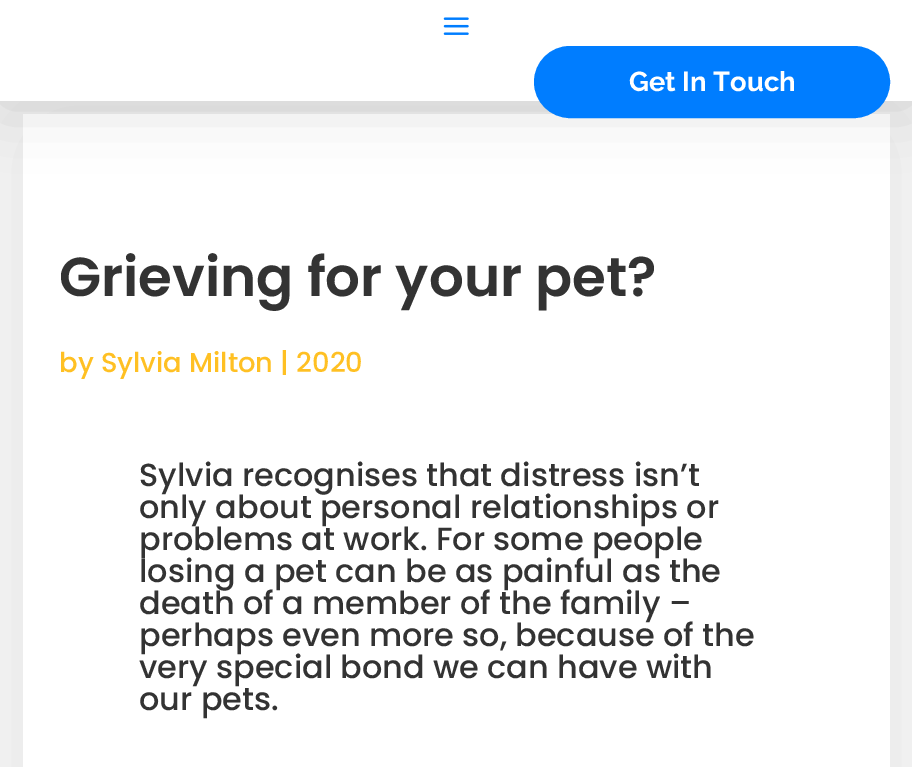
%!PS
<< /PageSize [912 767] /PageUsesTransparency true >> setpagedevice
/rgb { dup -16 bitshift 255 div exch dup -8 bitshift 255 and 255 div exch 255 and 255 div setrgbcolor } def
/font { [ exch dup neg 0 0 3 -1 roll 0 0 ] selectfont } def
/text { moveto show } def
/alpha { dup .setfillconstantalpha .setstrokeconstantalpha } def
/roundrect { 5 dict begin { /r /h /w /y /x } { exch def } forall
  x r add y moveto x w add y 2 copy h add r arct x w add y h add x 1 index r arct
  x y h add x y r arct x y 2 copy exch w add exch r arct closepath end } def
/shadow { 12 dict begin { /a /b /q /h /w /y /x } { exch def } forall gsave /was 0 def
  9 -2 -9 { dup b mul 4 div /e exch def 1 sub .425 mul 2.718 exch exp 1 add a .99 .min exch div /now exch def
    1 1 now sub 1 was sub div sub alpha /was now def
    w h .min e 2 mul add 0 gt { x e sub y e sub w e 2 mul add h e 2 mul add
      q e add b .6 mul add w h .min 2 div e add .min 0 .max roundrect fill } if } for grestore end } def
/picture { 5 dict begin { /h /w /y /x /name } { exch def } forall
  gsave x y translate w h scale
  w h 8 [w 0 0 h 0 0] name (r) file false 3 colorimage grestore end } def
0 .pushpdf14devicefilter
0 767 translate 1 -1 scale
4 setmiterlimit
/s1 { /Raleway-Bold 27.4 font 16#FFFFFF rgb } def
/s2 { /Poppins-SemiBold 54.75 font 16#333333 rgb } def
/s3 { /Poppins-Medium 27.4 font 16#FFC023 rgb } def
/s4 { /Poppins-Medium 31.9 font 16#333333 rgb } def
16#F4F4F4 rgb
0 0 912 767 rectfill
16#000000 rgb
49 143 815 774 0 50 0.08 shadow
16#FFFFFF rgb
23 114 867 653 rectfill
16#000000 rgb
0 3 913 101 0 31 0.15 shadow
16#FFFFFF rgb
0 0 912 101 rectfill
(pic1.raw) 443 17 26 18 picture
16#007DFF rgb
536 48 352 68 34 roundrect gsave fill grestore
4 setlinewidth
stroke
s1
(Get In Touch) 629 91 text
s2
(Grieving for your pet?) 59 296 text
s3
(by Sylvia Milton | 2020) 59 372 text
s4
(Sylvia recognises that distress isn’t) 139 486 text
(only about personal relationships or) 139 518 text
(problems at work. For some people) 139 550 text
(losing a pet can be as painful as the) 139 582 text
(death of a member of the family –) 139 614 text
(perhaps even more so, because of the) 139 646 text
(very special bond we can have with) 139 678 text
(our pets.) 139 710 text
.poppdf14devicefilter showpage
